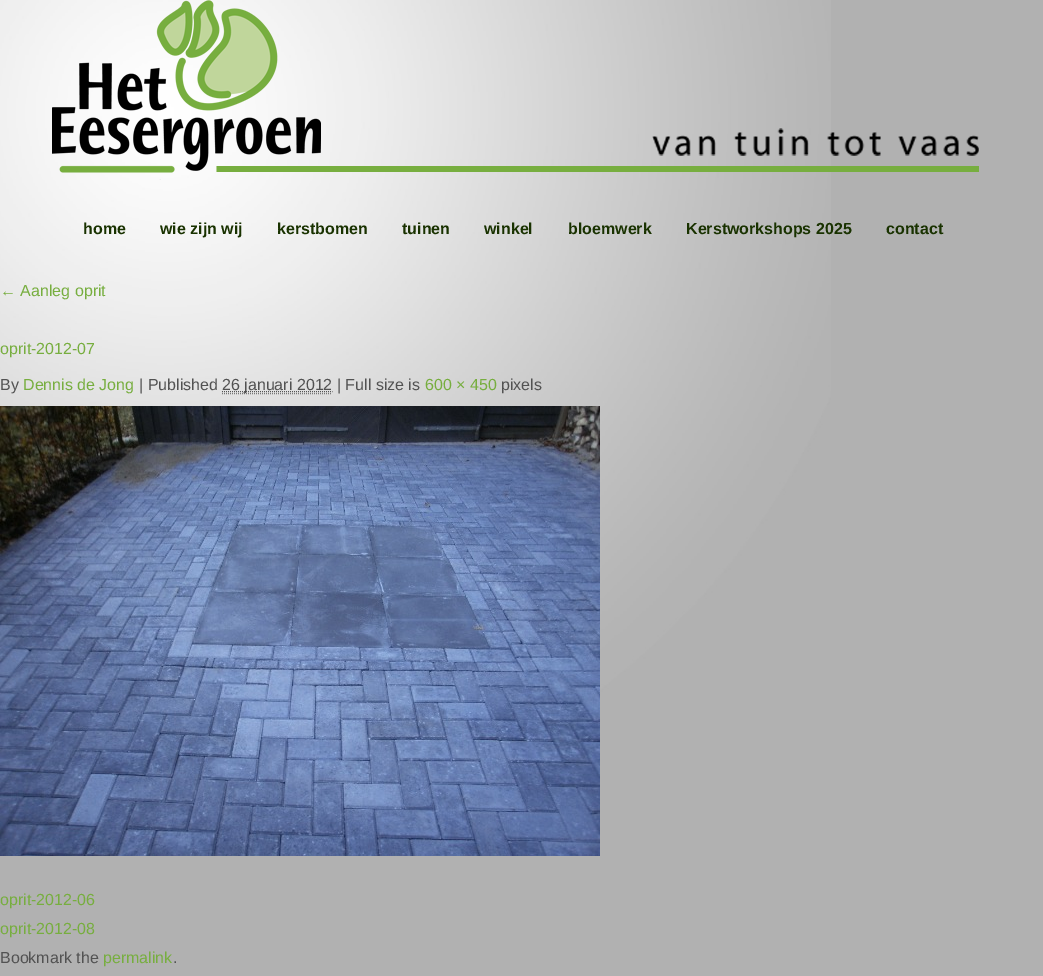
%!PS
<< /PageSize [1043 976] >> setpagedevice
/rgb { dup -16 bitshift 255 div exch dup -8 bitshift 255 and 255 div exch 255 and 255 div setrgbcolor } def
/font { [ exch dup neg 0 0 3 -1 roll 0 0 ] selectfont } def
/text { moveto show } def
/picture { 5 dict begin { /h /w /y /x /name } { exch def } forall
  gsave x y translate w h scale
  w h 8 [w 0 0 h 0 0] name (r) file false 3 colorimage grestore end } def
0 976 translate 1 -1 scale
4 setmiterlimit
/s1 { /LiberationSans-Bold 16 font 16#193200 rgb } def
/s2 { /LiberationSans-Regular 16 font 16#77AE3F rgb } def
/s3 { /LiberationSans-Regular 16 font 16#525252 rgb } def
16#B1B1B1 rgb
0 0 1043 976 rectfill
(pic1.raw) 0 0 831 776 picture
(pic2.raw) 52 0 927 180 picture
s1
(home) 83 234 text
(wie zijn wij) 160 234 text
(kerstbomen) 277 234 text
(tuinen) 402 234 text
(winkel) 484 234 text
(bloemwerk) 568 234 text
(Kerstworkshops 2025) 686 234 text
(contact) 886 234 text
s2
(← Aanleg oprit) 0 296 text
(oprit-2012-07) 0 354 text
s3
(By) 0 390 text
s2
(Dennis de Jong) 23 390 text
s3
(| Published) 139 390 text
16#777777 rgb
[1 1] 0 setdash
222 393.5 moveto 332 393.5 lineto stroke
16#525252 rgb
222 391.5 moveto 332.5 391.5 lineto stroke
(26 januari 2012 | Full size is) 222 390 text
s2
(600 × 450) 425 390 text
s3
(pixels) 501 390 text
(pic3.raw) 0 406 600 450 picture
s2
(oprit-2012-06) 0 905 text
(oprit-2012-08) 0 934 text
s3
(Bookmark the) 0 963 text
s2
(permalink) 103 963 text
s3
(.) 173 963 text
showpage
